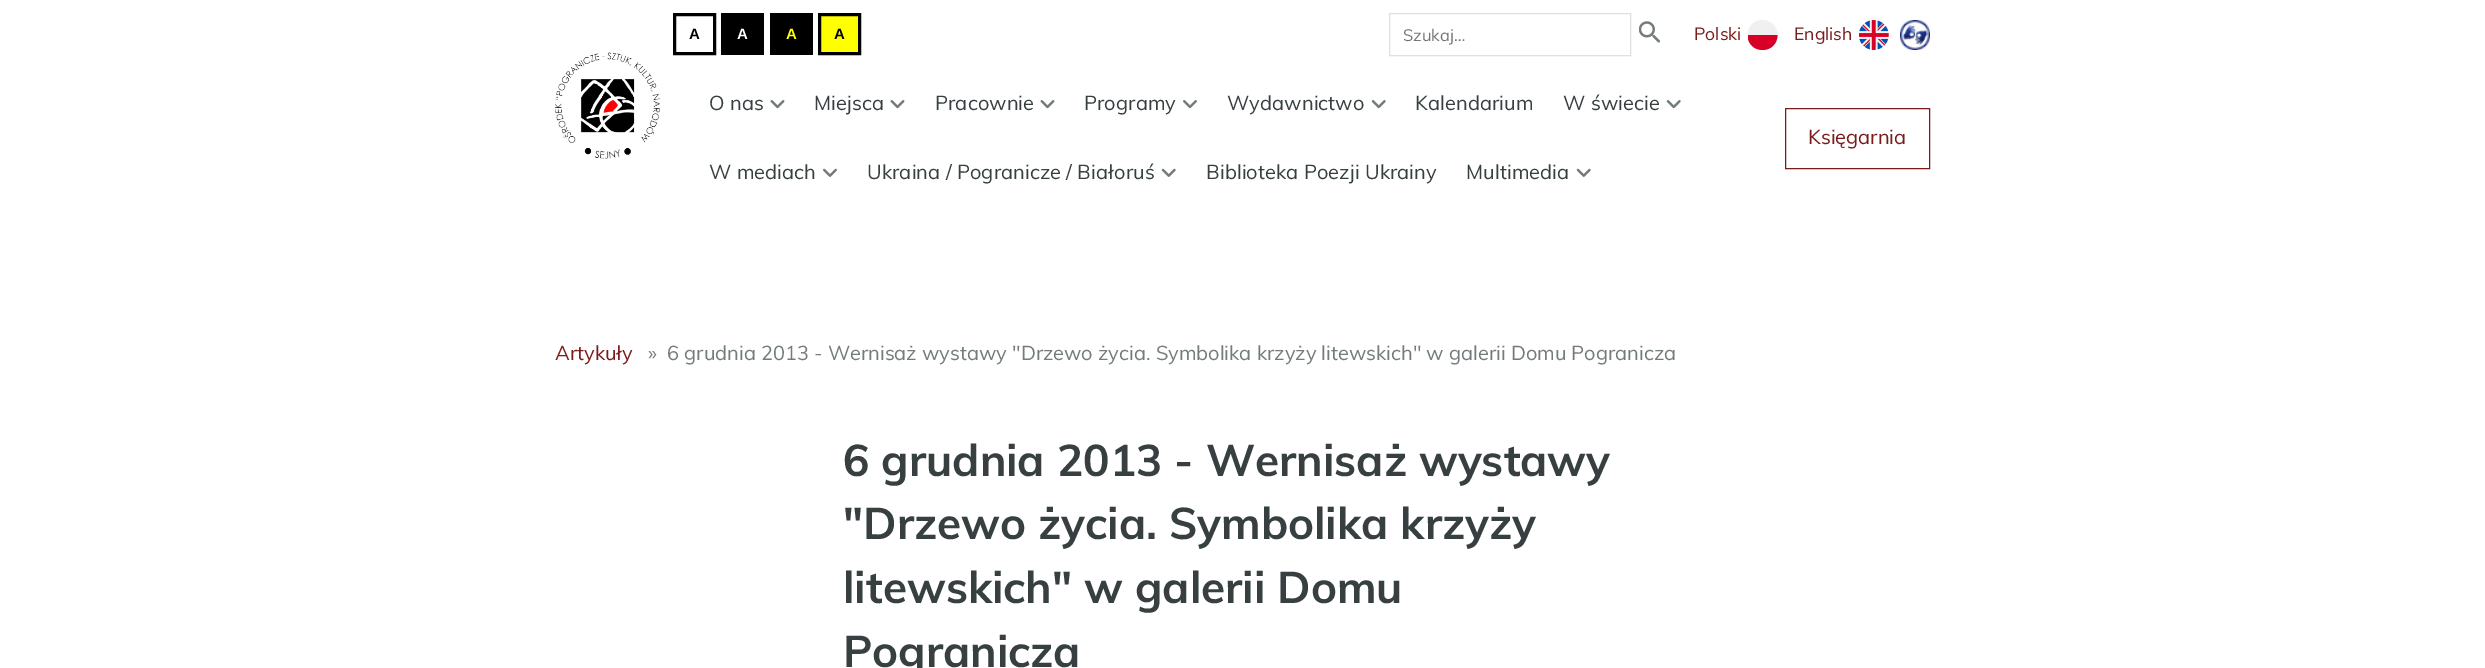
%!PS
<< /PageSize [2485 668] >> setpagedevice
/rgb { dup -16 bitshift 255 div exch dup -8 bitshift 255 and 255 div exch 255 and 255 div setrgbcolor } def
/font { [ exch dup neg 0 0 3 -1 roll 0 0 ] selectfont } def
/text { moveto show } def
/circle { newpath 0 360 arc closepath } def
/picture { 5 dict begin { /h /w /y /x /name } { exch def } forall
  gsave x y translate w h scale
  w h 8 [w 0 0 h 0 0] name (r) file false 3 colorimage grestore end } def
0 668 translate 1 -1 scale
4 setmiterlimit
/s1 { /LiberationSans-Bold 15 font 16#000000 rgb } def
/s2 { /LiberationSans-Bold 15 font 16#FFFFFF rgb } def
/s3 { /LiberationSans-Bold 15 font 16#FFFF00 rgb } def
/s4 { /Mulish-Regular 16.5 font 16#757575 rgb } def
/s5 { /Mulish-Regular 17.5 font 16#7A1C1C rgb } def
/s6 { /Mulish-Regular 20 font 16#7A1C1C rgb } def
/s7 { /Mulish-Regular 20 font 16#737B7D rgb } def
/s8 { /Mulish-Bold 44 font 16#373F41 rgb } def
16#FFFFFF rgb
0 0 2485 668 rectfill
(pic1.raw) 555 52 105 107 picture
16#000000 rgb
3 setlinewidth
674.5 14.5 40 39 rectstroke
s1
(A) 689 39 text
721 13 43 42 rectfill
s2
(A) 737 39 text
16#000000 rgb
770 13 43 42 rectfill
s3
(A) 786 39 text
819.5 14.5 moveto 859.5 14.5 lineto 859.5 53.5 lineto 819.5 53.5 lineto closepath gsave fill grestore
16#000000 rgb
stroke
(A) 834 39 text
16#E0E0E0 rgb
1 setlinewidth
1389.5 13.5 241 42 rectstroke
s4
(Szukaj…) 1403 41 text
(pic2.raw) 1639 21 21 22 picture
s5
(Polski) 1694 40 text
gsave
1748 20 30 30 rectclip
16#F0F0F0 rgb
1762.5 35 15 circle fill
16#D80027 rgb
1777.5 35 moveto 1777.5 43.5 1771 50 1762.5 50 curveto 1754 50 1747.5 43.5 1747.5 35 curveto fill
grestore
(English) 1794 40 text
(pic3.raw) 1859 20 30 30 picture
(pic4.raw) 1900 20 30 30 picture
/Mulish-Regular 20 font
16#373F41 rgb
709 110 moveto 0.1 0 (O nas) ashow
(pic5.raw) 770 100 15 9 picture
814 110 moveto 0.1 0 (Miejsca) ashow
(pic5.raw) 890 100 15 9 picture
935 110 moveto 0.1 0 (Pracownie) ashow
(pic5.raw) 1040 100 15 9 picture
1084 110 moveto 0.1 0 (Programy) ashow
(pic6.raw) 1183 100 14 9 picture
1227 110 moveto 0.1 0 (Wydawnictwo) ashow
(pic7.raw) 1371 100 15 9 picture
1415 110 moveto 0.1 0 (Kalendarium) ashow
1563 110 moveto 0.1 0 (W świecie) ashow
(pic7.raw) 1666 100 15 9 picture
709 179 moveto 0.1 0 (W mediach) ashow
(pic8.raw) 823 168 14 9 picture
867 179 moveto 0.1 0 (Ukraina / Pogranicze / Białoruś) ashow
(pic9.raw) 1161 168 15 9 picture
1206 179 moveto 0.1 0 (Biblioteka Poezji Ukrainy) ashow
1466 179 moveto 0.1 0 (Multimedia) ashow
(pic9.raw) 1576 168 15 9 picture
16#7A1C1C rgb
1785.5 108.5 144 60 rectstroke
(Księgarnia) 1808 144 text
(Artykuły) 555 360 text
s7
(») 648 360 text
(6 grudnia 2013 - Wernisaż wystawy "Drzewo życia. Symbolika krzyży litewskich" w galerii Domu Pogranicza) 667 360 text
s8
(6 grudnia 2013 - Wernisaż wystawy) 843 476 text
("Drzewo życia. Symbolika krzyży) 843 539 text
(litewskich" w galerii Domu) 843 603 text
(Pogranicza) 843 667 text
showpage
